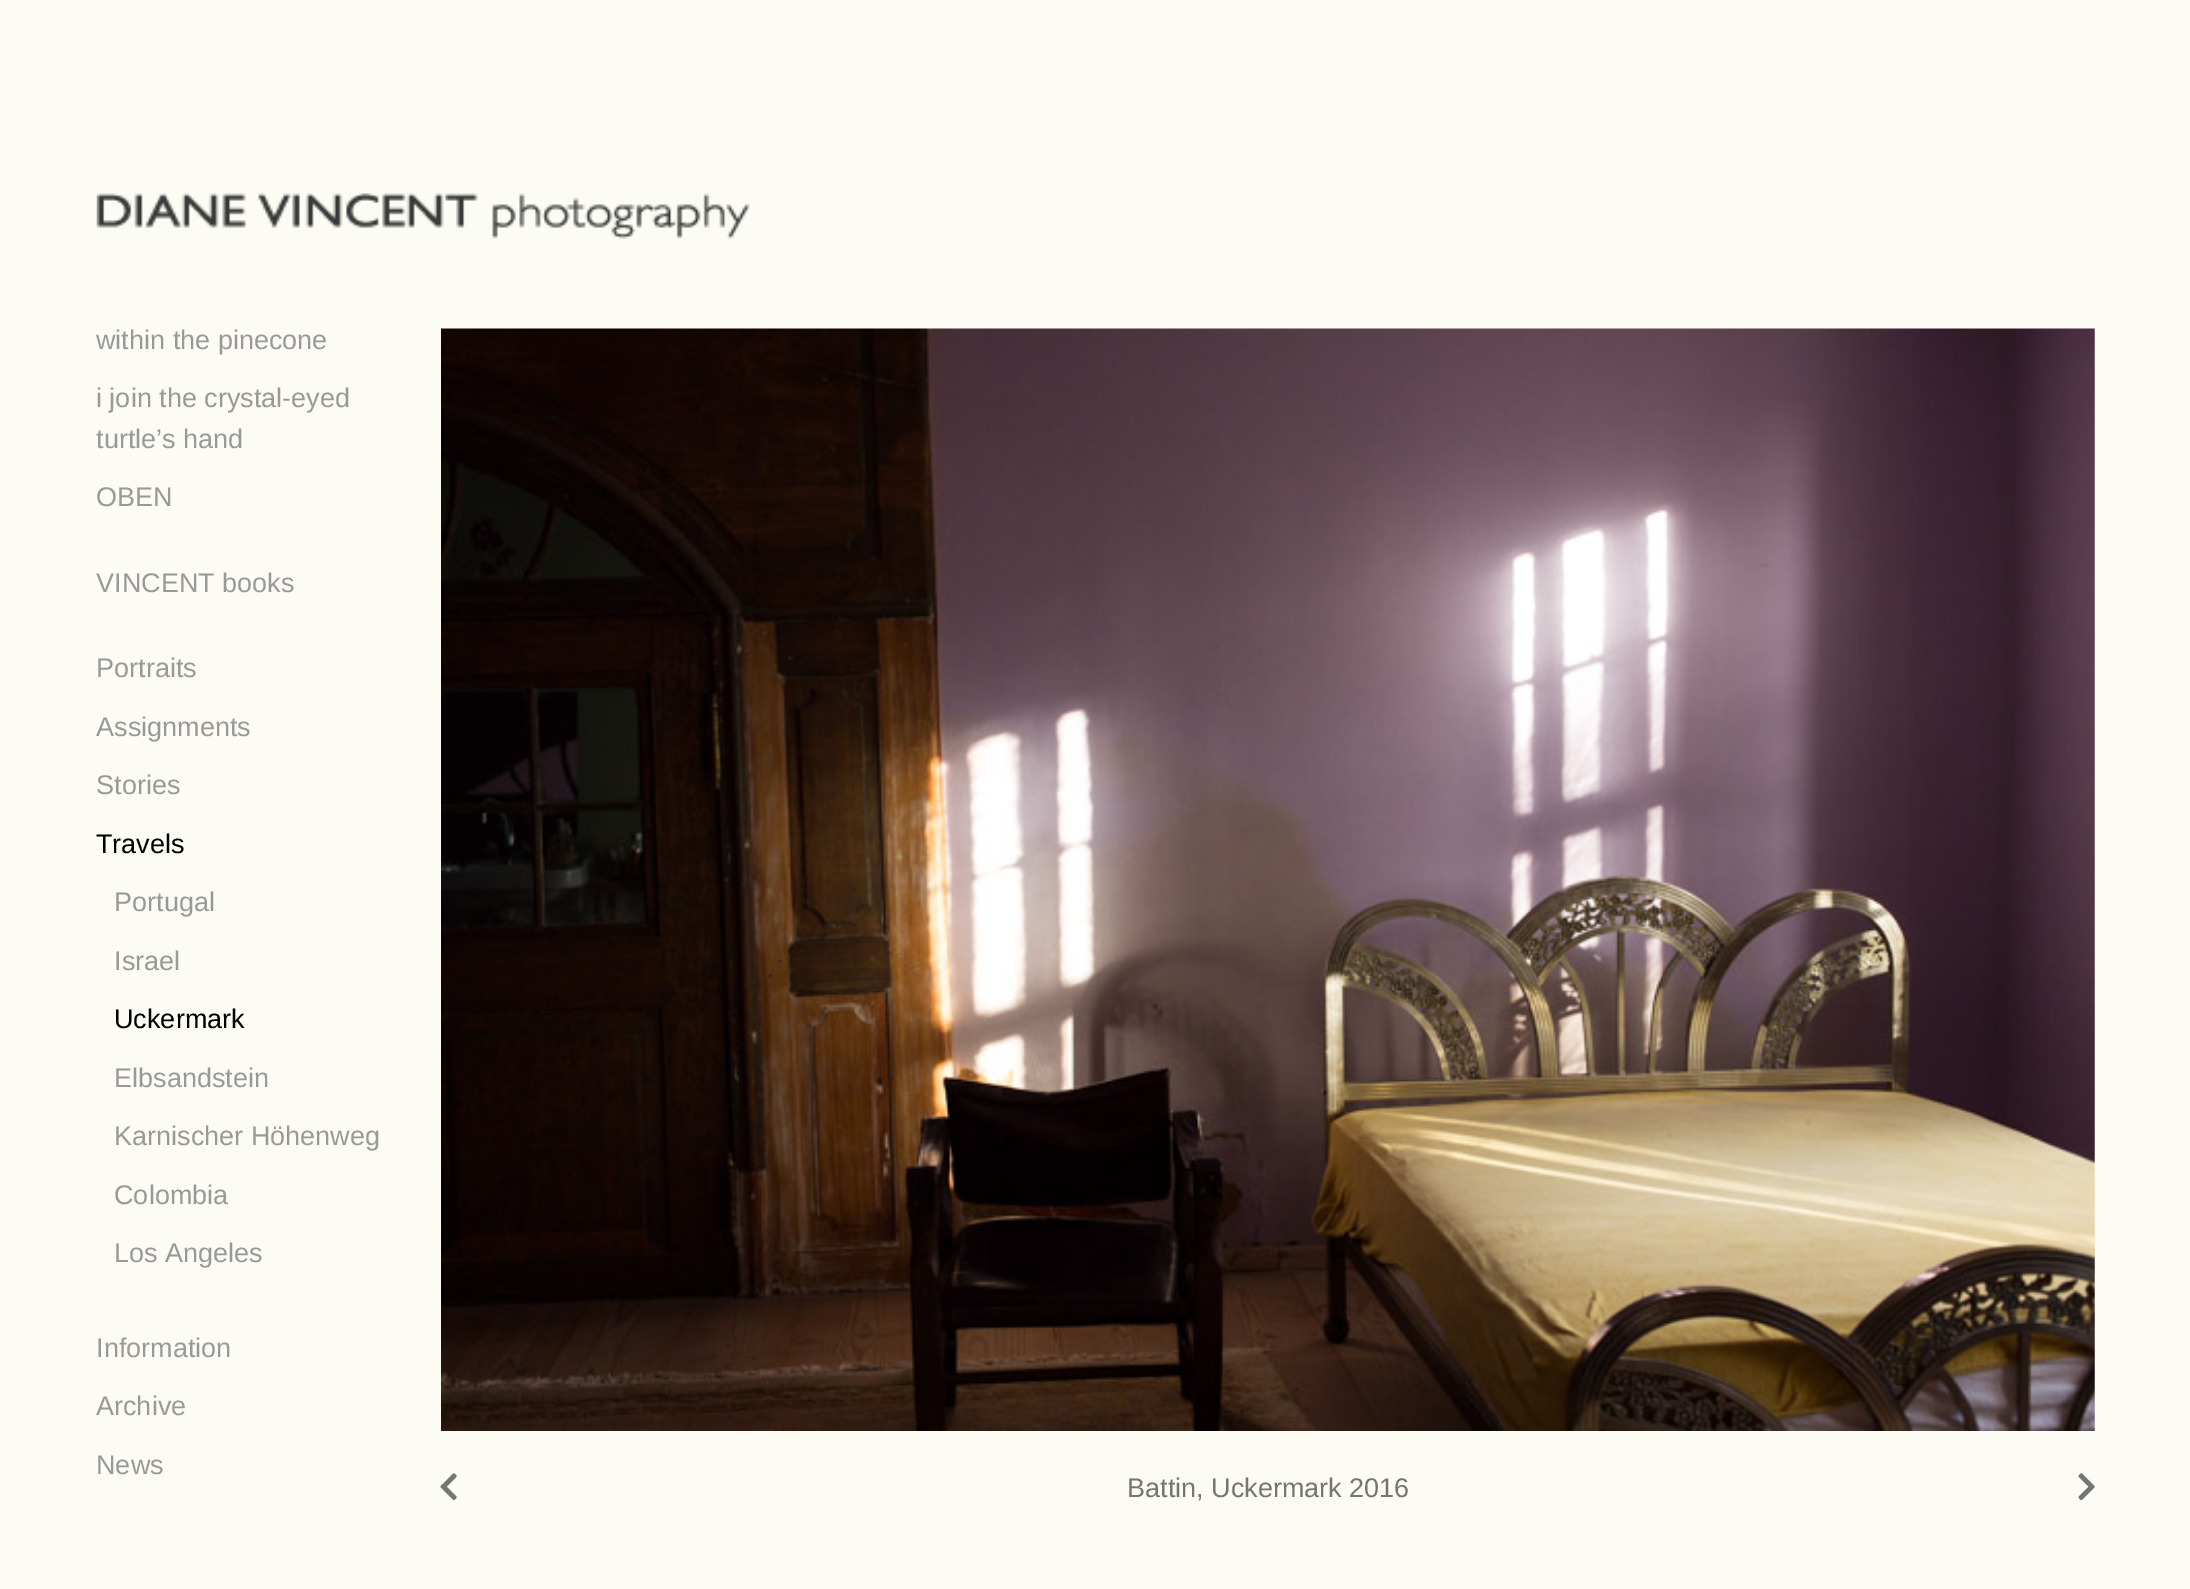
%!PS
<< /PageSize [2190 1589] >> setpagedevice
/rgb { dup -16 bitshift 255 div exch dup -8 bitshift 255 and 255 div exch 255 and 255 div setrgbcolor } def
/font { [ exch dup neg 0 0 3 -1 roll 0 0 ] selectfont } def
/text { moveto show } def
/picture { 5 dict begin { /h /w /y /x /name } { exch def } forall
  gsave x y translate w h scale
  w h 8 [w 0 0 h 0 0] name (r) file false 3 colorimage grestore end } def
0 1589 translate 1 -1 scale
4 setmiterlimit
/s1 { /LiberationSans-Regular 27 font 16#999999 rgb } def
/s2 { /LiberationSans-Regular 27 font 16#000000 rgb } def
/s3 { /LiberationSans-Regular 27 font 16#757575 rgb } def
16#FCFCF4 rgb
0 0 2190 1589 rectfill
(pic1.raw) 96 193 654 46 picture
s1
(within the pinecone) 96 349 text
(i join the crystal-eyed) 96 407 text
(turtle’s hand) 96 448 text
(OBEN) 96 506 text
(VINCENT books) 96 592 text
(Portraits) 96 677 text
(Assignments) 96 736 text
(Stories) 96 794 text
s2
(Travels) 96 853 text
s1
(Portugal) 114 911 text
(Israel) 114 970 text
s2
(Uckermark) 114 1028 text
s1
(Elbsandstein) 114 1087 text
(Karnischer Höhenweg) 114 1145 text
(Colombia) 114 1204 text
(Los Angeles) 114 1262 text
(Information) 96 1357 text
(Archive) 96 1415 text
(News) 96 1474 text
(pic2.raw) 441 328 1654 1103 picture
(pic3.raw) 440 1473 17 28 picture
s3
(Battin, Uckermark 2016) 1127 1497 text
(pic4.raw) 2078 1473 17 28 picture
showpage
